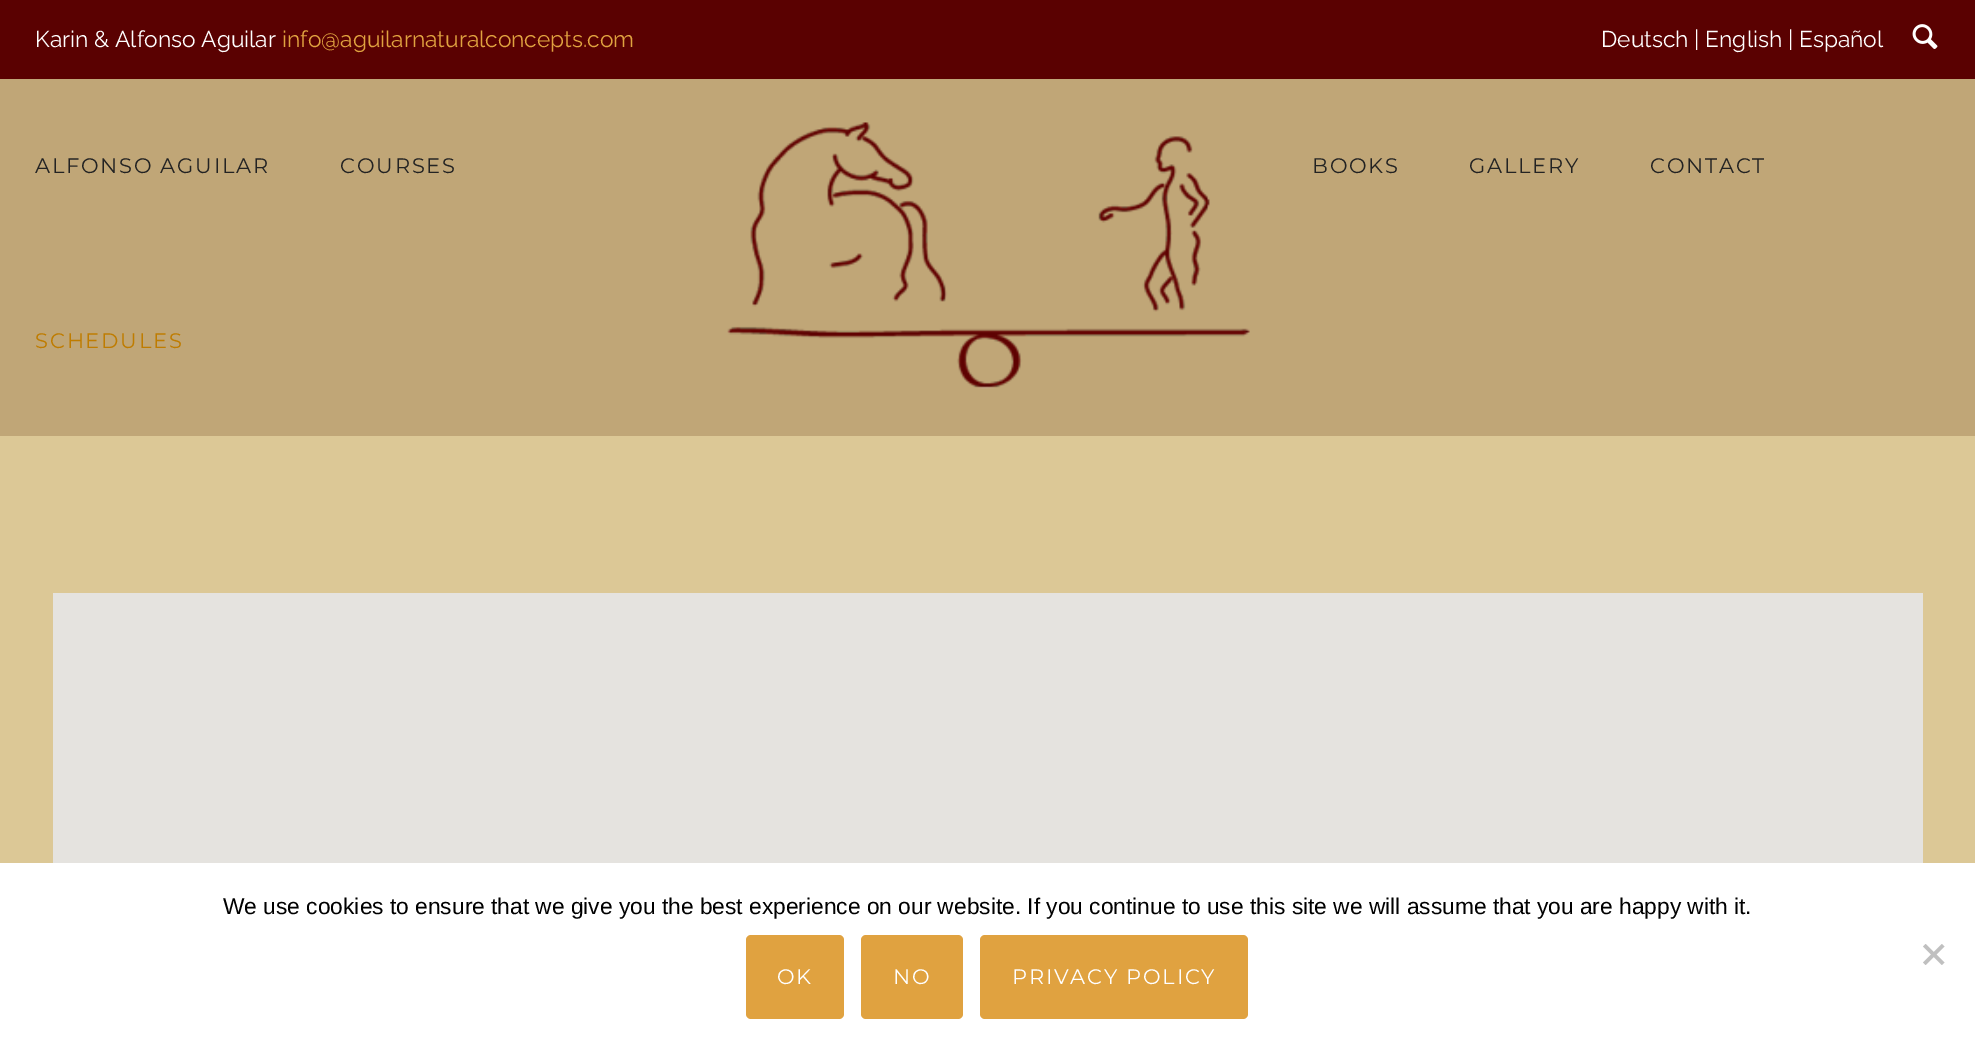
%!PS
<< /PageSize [1975 1044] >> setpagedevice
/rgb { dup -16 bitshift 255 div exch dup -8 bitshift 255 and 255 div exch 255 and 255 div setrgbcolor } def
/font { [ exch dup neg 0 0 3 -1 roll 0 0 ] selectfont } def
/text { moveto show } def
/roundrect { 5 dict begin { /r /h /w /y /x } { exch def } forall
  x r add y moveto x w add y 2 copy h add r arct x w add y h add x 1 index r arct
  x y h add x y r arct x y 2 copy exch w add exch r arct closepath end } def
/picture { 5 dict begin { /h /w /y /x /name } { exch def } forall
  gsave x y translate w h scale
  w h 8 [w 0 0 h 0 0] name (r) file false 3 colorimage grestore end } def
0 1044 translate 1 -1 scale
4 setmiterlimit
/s1 { /Raleway-Regular 22.75 font 16#FFFFFF rgb } def
/s2 { /Raleway-Regular 22.75 font 16#E0A240 rgb } def
/s3 { /LiberationSans-Regular 22.75 font 16#000000 rgb } def
16#C0A677 rgb
0 0 1975 1044 rectfill
16#5A0101 rgb
0 0 1975 79 rectfill
s1
(Karin & Alfonso Aguilar) 35 47 text
s2
(info@aguilarnaturalconcepts.com) 282 47 text
s1
(Deutsch | English | Español) 1601 47 text
(pic1.raw) 1912 24 26 25 picture
/Montserrat-Regular 21 font
16#232323 rgb
35 173 moveto 1.75 0 (ALFONSO AGUILAR) ashow
340 173 moveto 1.75 0 (COURSES) ashow
16#BF7C00 rgb
35 348 moveto 1.75 0 (SCHEDULES) ashow
(pic2.raw) 727 122 523 267 picture
16#232323 rgb
1312 173 moveto 1.75 0 (BOOKS) ashow
1469 173 moveto 1.75 0 (GALLERY) ashow
1650 173 moveto 1.75 0 (CONTACT) ashow
16#DCC896 rgb
0 436 1975 427 rectfill
16#E5E3DF rgb
53 593 1870 270 rectfill
16#FFFFFF rgb
0 863 1975 181 rectfill
s3
(We use cookies to ensure that we give you the best experience on our website. If you continue to use this site we will assume that you are happy with it.) 223 914 text
16#C0C0C0 rgb
1942 944 moveto 1944.5 946.5 lineto 1925.5 965 lineto 1923 962.5 lineto closepath fill
1923 946.5 moveto 1925.5 944 lineto 1944.5 962.5 lineto 1942 965 lineto closepath fill
16#E0A240 rgb
746 935 98 84 5 roundrect fill
/Montserrat-Regular 21 font
16#FFFFFF rgb
777 984 moveto 1.75 0 (OK) ashow
16#E0A240 rgb
861 935 102 84 5 roundrect fill
16#FFFFFF rgb
893 984 moveto 1.75 0 (NO) ashow
16#E0A240 rgb
980 935 268 84 5 roundrect fill
16#FFFFFF rgb
1012 984 moveto 1.75 0 (PRIVACY POLICY) ashow
showpage
